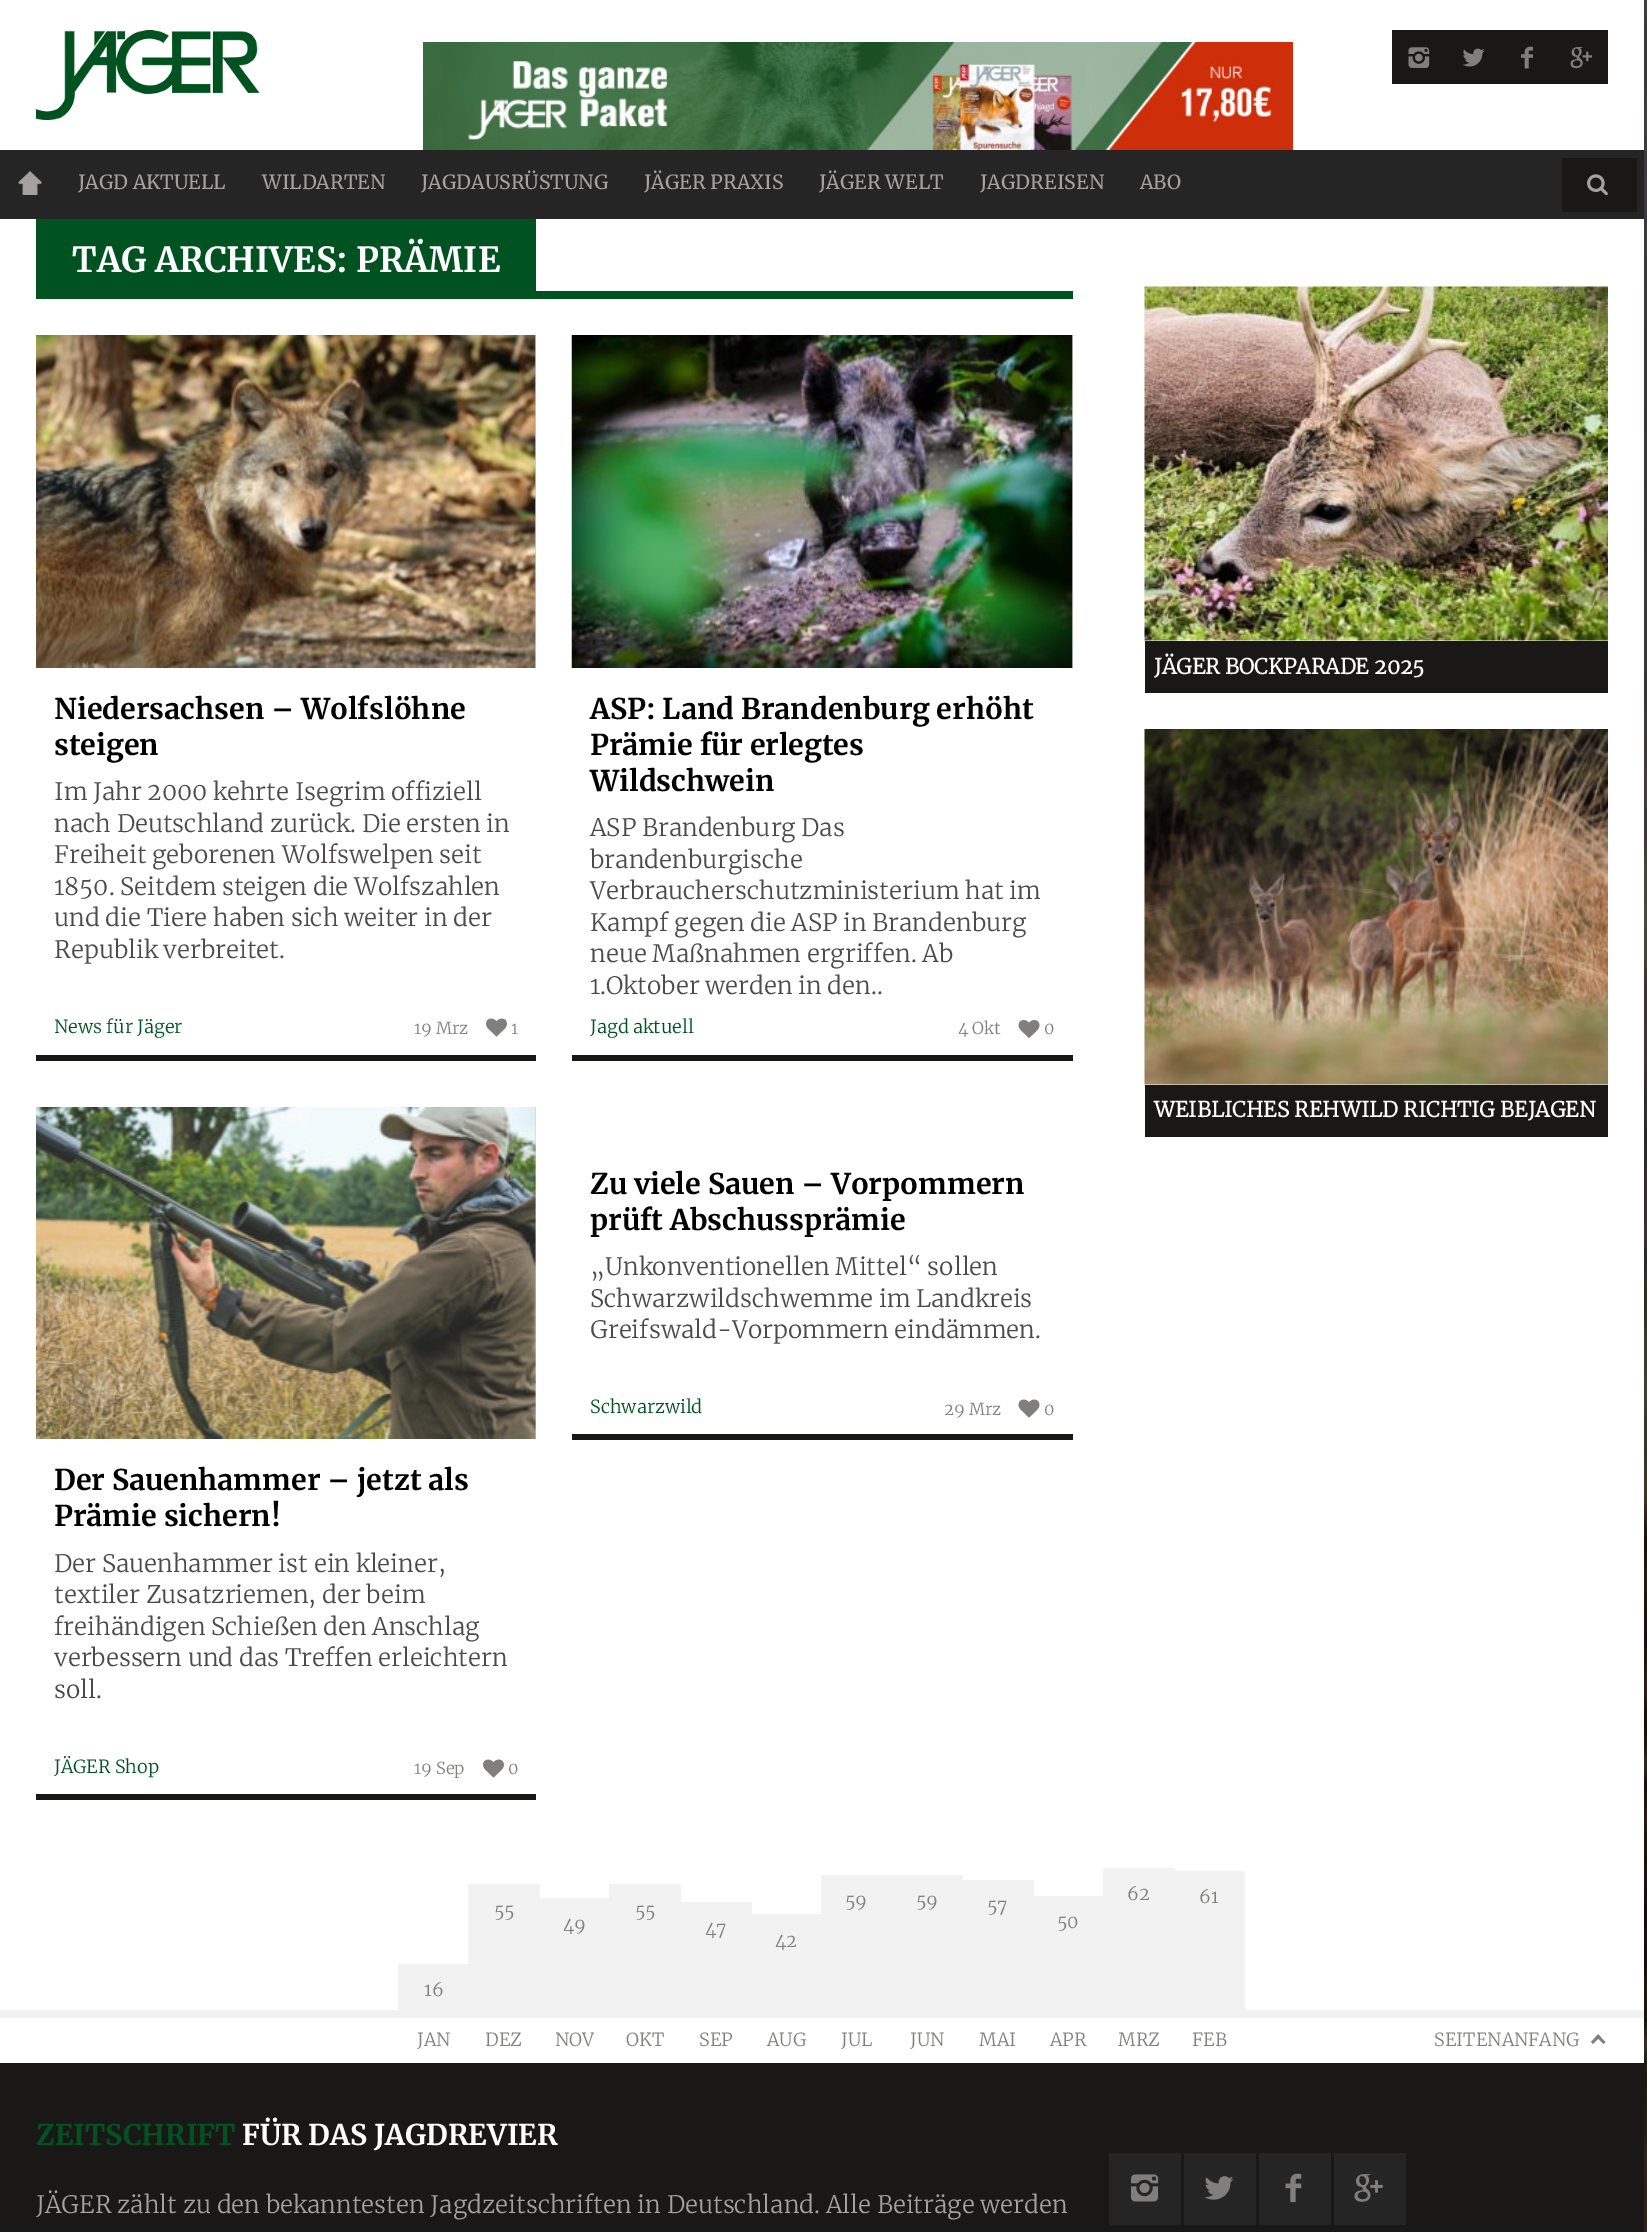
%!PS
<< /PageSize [1647 2232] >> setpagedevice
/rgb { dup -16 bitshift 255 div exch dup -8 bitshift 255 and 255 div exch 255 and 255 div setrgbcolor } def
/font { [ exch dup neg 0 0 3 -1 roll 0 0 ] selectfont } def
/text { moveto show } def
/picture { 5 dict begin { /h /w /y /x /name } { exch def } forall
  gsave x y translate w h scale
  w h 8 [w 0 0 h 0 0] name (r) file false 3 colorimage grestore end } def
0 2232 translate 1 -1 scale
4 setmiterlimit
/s1 { /Merriweather-Regular 19.5 font 16#A6A1A1 rgb } def
/s2 { /Merriweather-Bold 34.5 font 16#FFFFFF rgb } def
/s3 { /Merriweather-Bold 28.5 font 16#000000 rgb } def
/s4 { /Merriweather-Light 24 font 16#4C4A4A rgb } def
/s5 { /Merriweather-Light 18 font 16#005321 rgb } def
/s6 { /Merriweather-Light 16.5 font 16#807F7E rgb } def
/s7 { /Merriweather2-Bold 21 font 16#FFFFFF rgb } def
/s8 { /Merriweather-Light 18 font 16#807F7E rgb } def
/s9 { /Merriweather-Bold 28.5 font 16#005321 rgb } def
/s10 { /Merriweather-Bold 28.5 font 16#FFFFFF rgb } def
/s11 { /Merriweather-Light 24 font 16#A6A1A1 rgb } def
16#FFFFFF rgb
0 0 1647 2232 rectfill
(pic1.raw) 1644 0 3 2232 picture
(pic2.raw) 36 30 224 90 picture
(pic3.raw) 423 42 870 108 picture
16#1A1717 rgb
1392 30 216 54 rectfill
(pic4.raw) 1408 47 22 21 picture
(pic5.raw) 1462 48 23 19 picture
(pic6.raw) 1521 46 12 23 picture
(pic7.raw) 1570 47 22 22 picture
16#262525 rgb
0 150 1644 69 rectfill
(pic8.raw) 18 171 24 24 picture
s1
(JAGD AKTUELL) 78 189 text
(WILDARTEN) 262 189 text
(JAGDAUSRÜSTUNG) 421 189 text
(JÄGER PRAXIS) 644 189 text
(JÄGER WELT) 819 189 text
(JAGDREISEN) 980 189 text
(ABO) 1140 189 text
16#1A1717 rgb
1562 158 75 54 rectfill
(pic9.raw) 1587 174 21 22 picture
16#005321 rgb
36 291 1037 8 rectfill
36 219 500 72 rectfill
s2
(TAG ARCHIVES: PRÄMIE) 72 272 text
16#CCCCCC rgb
535 335 1 333 rectfill
(pic10.raw) 36 335 500 333 picture
s3
(Niedersachsen – Wolfslöhne) 54 719 text
(steigen) 54 755 text
s4
(Im Jahr 2000 kehrte Isegrim offiziell) 54 800 text
(nach Deutschland zurück. Die ersten in) 54 832 text
(Freiheit geborenen Wolfswelpen seit) 54 863 text
(1850. Seitdem steigen die Wolfszahlen) 54 895 text
(und die Tiere haben sich weiter in der) 54 926 text
(Republik verbreitet.) 54 958 text
16#1A1717 rgb
36 1055 500 6 rectfill
s5
(News für Jäger) 54 1033 text
s6
(19 Mrz) 414 1034 text
(pic11.raw) 486 1018 21 19 picture
(1) 511 1034 text
16#CCCCCC rgb
535 1107 1 332 rectfill
(pic12.raw) 36 1107 500 332 picture
s3
(Der Sauenhammer – jetzt als) 54 1490 text
(Prämie sichern!) 54 1526 text
s4
(Der Sauenhammer ist ein kleiner,) 54 1572 text
(textiler Zusatzriemen, der beim) 54 1603 text
(freihändigen Schießen den Anschlag) 54 1635 text
(verbessern und das Treffen erleichtern) 54 1666 text
(soll.) 54 1698 text
16#1A1717 rgb
36 1794 500 6 rectfill
s5
(JÄGER Shop) 54 1773 text
s6
(19 Sep) 414 1774 text
(pic11.raw) 483 1759 21 19 picture
(0) 508 1774 text
16#CCCCCC rgb
1072 335 1 333 rectfill
(pic13.raw) 571 335 502 333 picture
s3
(ASP: Land Brandenburg erhöht) 590 719 text
(Prämie für erlegtes) 590 755 text
(Wildschwein) 590 791 text
s4
(ASP Brandenburg Das) 590 836 text
(brandenburgische) 590 868 text
(Verbraucherschutzministerium hat im) 590 899 text
(Kampf gegen die ASP in Brandenburg) 590 931 text
(neue Maßnahmen ergriffen. Ab) 590 962 text
(1.Oktober werden in den..) 590 994 text
16#1A1717 rgb
572 1055 501 6 rectfill
s5
(Jagd aktuell) 590 1033 text
s6
(4 Okt) 958 1034 text
(pic14.raw) 1018 1020 22 18 picture
(0) 1044 1034 text
s3
(Zu viele Sauen – Vorpommern) 590 1194 text
(prüft Abschussprämie) 590 1230 text
s4
(„Unkonventionellen Mittel“ sollen) 590 1275 text
(Schwarzwildschwemme im Landkreis) 590 1307 text
(Greifswald-Vorpommern eindämmen.) 590 1338 text
16#1A1717 rgb
572 1434 501 6 rectfill
s5
(Schwarzwild) 590 1413 text
s6
(29 Mrz) 944 1415 text
(pic15.raw) 1018 1399 22 19 picture
(0) 1044 1415 text
(pic16.raw) 1144 286 464 355 picture
16#1A1717 rgb
1145 641 463 52 rectfill
s7
(JÄGER BOCKPARADE 2025) 1154 674 text
(pic17.raw) 1144 729 464 356 picture
16#1A1717 rgb
1145 1085 463 52 rectfill
s7
(WEIBLICHES REHWILD RICHTIG BEJAGEN) 1154 1117 text
16#F2F2F2 rgb
398 1964 70 46 rectfill
s8
(16) 424 1996 text
(JAN) 417 2046 text
16#F2F2F2 rgb
468 1884 72 126 rectfill
s8
(55) 494 1917 text
(DEZ) 485 2046 text
16#F2F2F2 rgb
540 1898 69 112 rectfill
s8
(49) 563 1931 text
(NOV) 555 2046 text
16#F2F2F2 rgb
609 1884 72 126 rectfill
s8
(55) 635 1917 text
(OKT) 626 2046 text
16#F2F2F2 rgb
681 1902 71 108 rectfill
s8
(47) 705 1935 text
(SEP) 699 2046 text
16#F2F2F2 rgb
752 1914 69 96 rectfill
s8
(42) 775 1947 text
(AUG) 767 2046 text
16#F2F2F2 rgb
821 1875 142 135 rectfill
s8
(59) 845 1907 text
(JUL) 841 2046 text
(59) 916 1907 text
(JUN) 910 2046 text
16#F2F2F2 rgb
963 1880 71 130 rectfill
s8
(57) 987 1912 text
(MAI) 979 2046 text
16#F2F2F2 rgb
1034 1896 69 114 rectfill
s8
(50) 1057 1928 text
(APR) 1050 2046 text
16#F2F2F2 rgb
1103 1868 72 142 rectfill
s8
(62) 1127 1900 text
(MRZ) 1118 2046 text
16#F2F2F2 rgb
1175 1871 70 139 rectfill
s8
(61) 1199 1903 text
(FEB) 1192 2046 text
16#F2F2F2 rgb
0 2010 1644 8 rectfill
s8
(SEITENANFANG) 1434 2046 text
1591 2042 moveto 1598 2034.5 lineto 1600.5 2036.5 lineto 1593 2044 lineto closepath fill
1596 2036.5 moveto 1598 2034.5 lineto 1605.5 2042 lineto 1603.5 2044 lineto closepath fill
16#1A1717 rgb
0 2063 1644 169 rectfill
s9
(ZEITSCHRIFT) 36 2145 text
s10
(FÜR DAS JAGDREVIER) 242 2145 text
s11
(JÄGER zählt zu den bekanntesten Jagdzeitschriften in Deutschland. Alle Beiträge werden) 36 2213 text
16#262525 rgb
1109 2153 72 72 rectfill
(pic18.raw) 1131 2174 28 28 picture
1184 2153 72 72 rectfill
(pic19.raw) 1204 2176 30 24 picture
1259 2153 72 72 rectfill
(pic20.raw) 1285 2173 17 30 picture
1334 2153 72 72 rectfill
(pic21.raw) 1354 2174 29 28 picture
showpage
